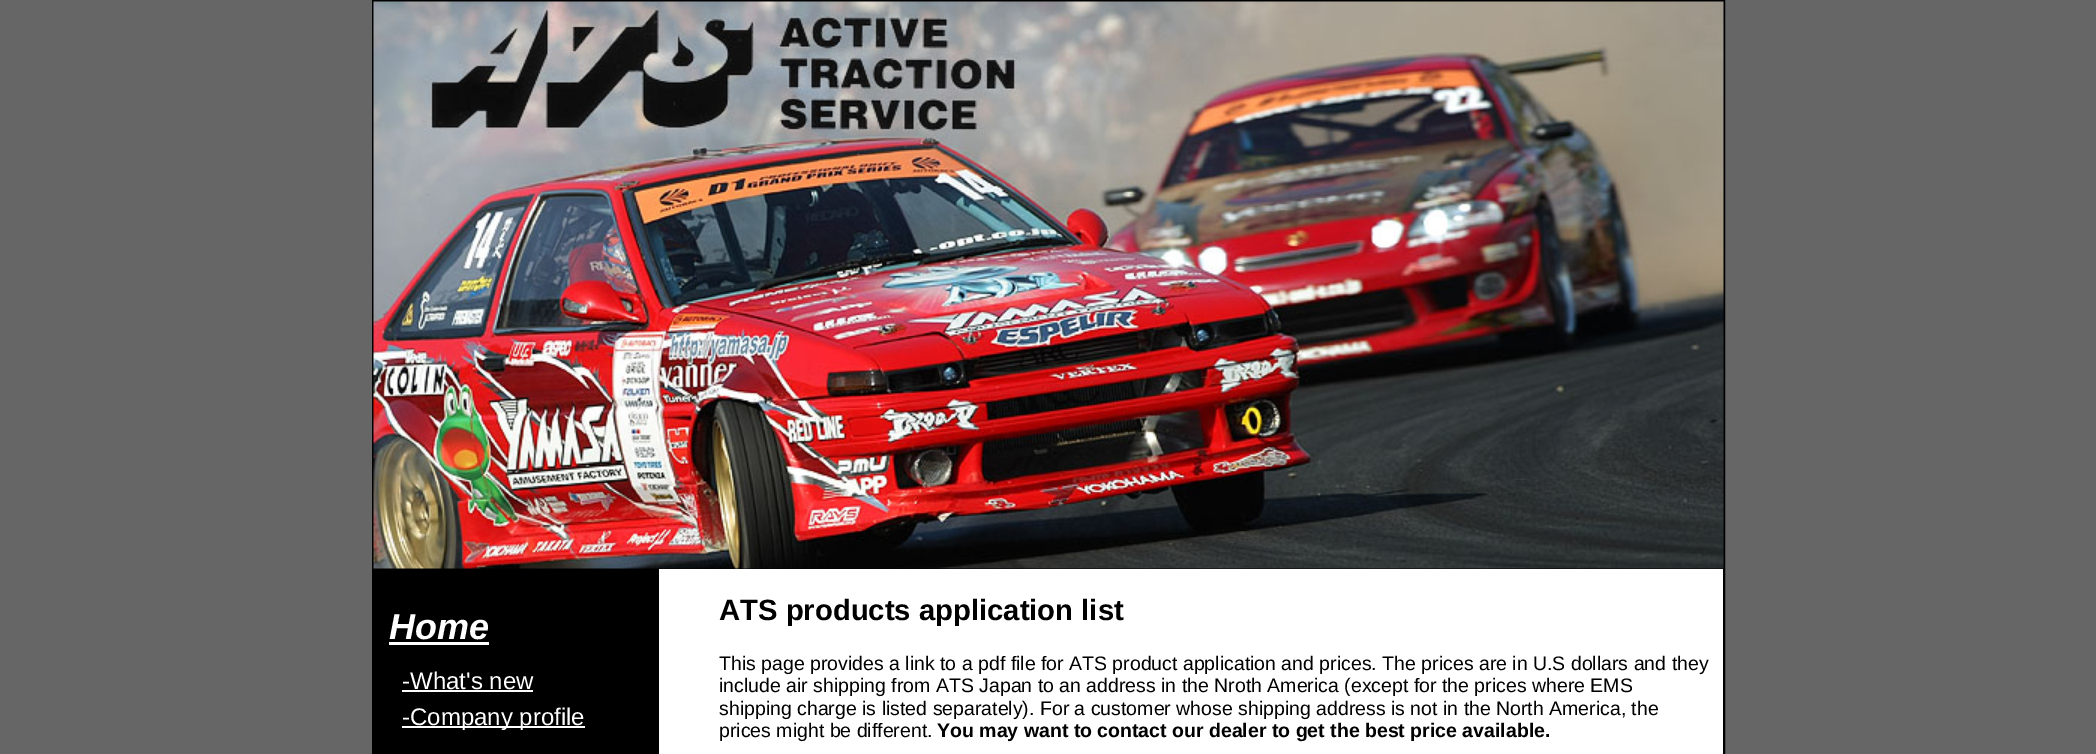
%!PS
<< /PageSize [2096 754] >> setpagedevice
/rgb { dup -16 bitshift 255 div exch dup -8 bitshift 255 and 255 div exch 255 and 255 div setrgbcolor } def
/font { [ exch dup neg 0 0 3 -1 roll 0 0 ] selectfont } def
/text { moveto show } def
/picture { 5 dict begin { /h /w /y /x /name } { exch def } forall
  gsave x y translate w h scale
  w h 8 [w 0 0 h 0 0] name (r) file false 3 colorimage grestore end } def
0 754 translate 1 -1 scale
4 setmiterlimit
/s1 { /LiberationSans-BoldItalic 36 font 16#FFFFFF rgb } def
/s2 { /LiberationSans-Regular 24 font 16#FFFFFF rgb } def
/s3 { /LiberationSans-Bold 29.25 font 16#000000 rgb } def
/s4 { /LiberationSans-Regular 19.5 font 16#000000 rgb } def
/s5 { /LiberationSans-Bold 19.5 font 16#000000 rgb } def
16#666666 rgb
0 0 2096 754 rectfill
16#FFFFFF rgb
659 569 1064 185 rectfill
16#000000 rgb
2 setlinewidth
373 1 1351 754 rectstroke
374 2 1349 567 rectfill
(pic1.raw) 373 1 1351 568 picture
374 569 285 185 rectfill
s1
(Home) 389 639 text
389 642 100 3 rectfill
s2
(-What's new) 402 689 text
402 690 131 2 rectfill
402 726 183 2 rectfill
(-Company profile) 402 725 text
s3
(ATS products application list) 719 620 text
s4
(This page provides a link to a pdf file for ATS product application and prices. The prices are in U.S dollars and they) 719 670 text
(include air shipping from ATS Japan to an address in the Nroth America \(except for the prices where EMS) 719 692 text
(shipping charge is listed separately\). For a customer whose shipping address is not in the North America, the) 719 715 text
(prices might be different.) 719 737 text
s5
(You may want to contact our dealer to get the best price available.) 937 737 text
showpage
